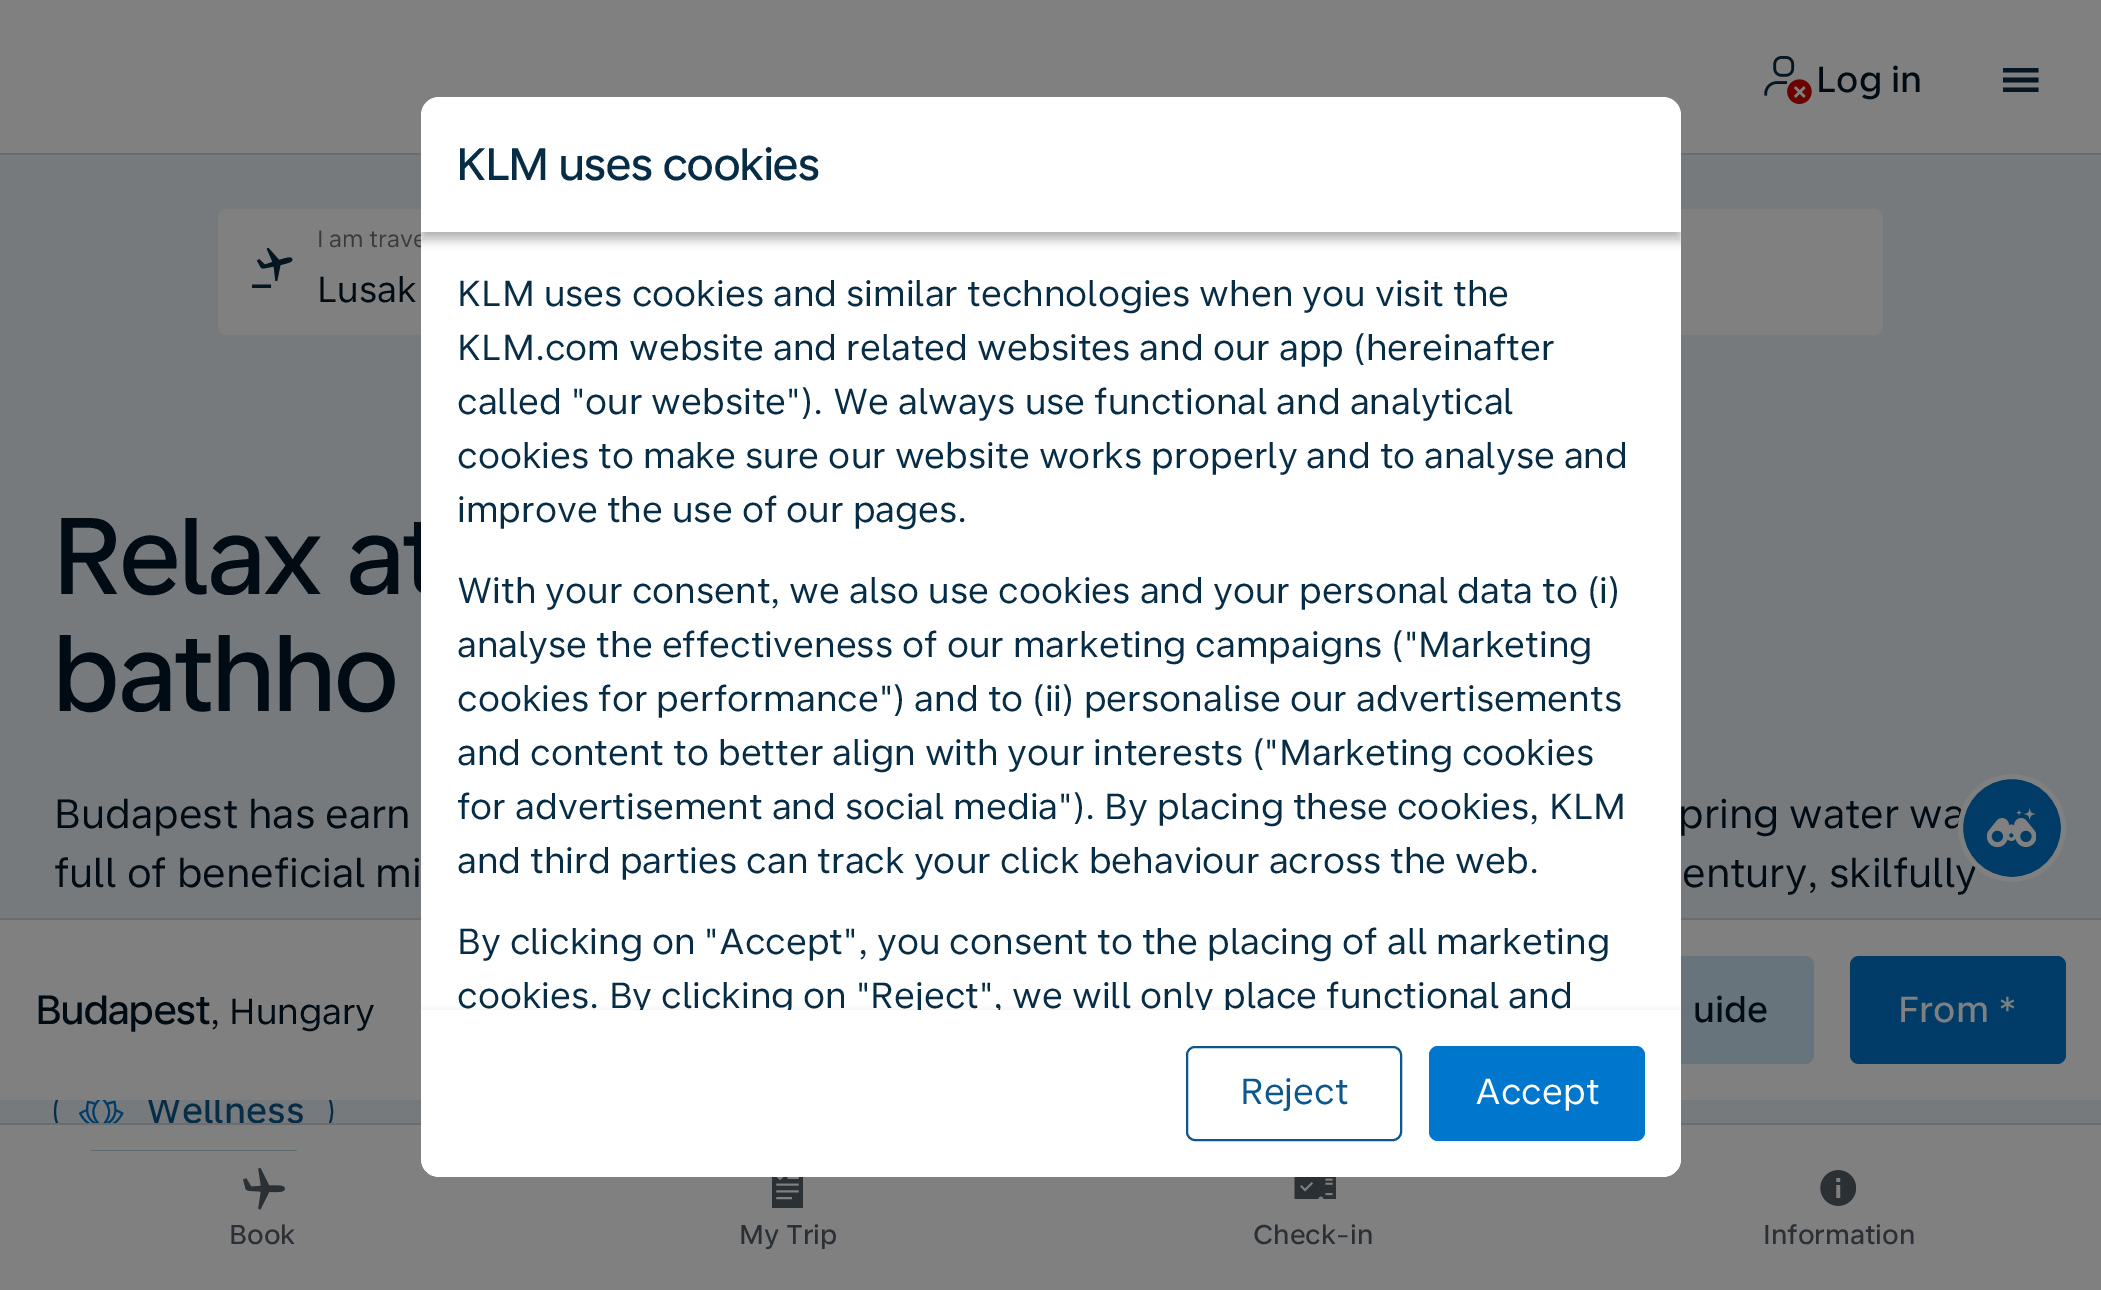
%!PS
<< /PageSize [2101 1290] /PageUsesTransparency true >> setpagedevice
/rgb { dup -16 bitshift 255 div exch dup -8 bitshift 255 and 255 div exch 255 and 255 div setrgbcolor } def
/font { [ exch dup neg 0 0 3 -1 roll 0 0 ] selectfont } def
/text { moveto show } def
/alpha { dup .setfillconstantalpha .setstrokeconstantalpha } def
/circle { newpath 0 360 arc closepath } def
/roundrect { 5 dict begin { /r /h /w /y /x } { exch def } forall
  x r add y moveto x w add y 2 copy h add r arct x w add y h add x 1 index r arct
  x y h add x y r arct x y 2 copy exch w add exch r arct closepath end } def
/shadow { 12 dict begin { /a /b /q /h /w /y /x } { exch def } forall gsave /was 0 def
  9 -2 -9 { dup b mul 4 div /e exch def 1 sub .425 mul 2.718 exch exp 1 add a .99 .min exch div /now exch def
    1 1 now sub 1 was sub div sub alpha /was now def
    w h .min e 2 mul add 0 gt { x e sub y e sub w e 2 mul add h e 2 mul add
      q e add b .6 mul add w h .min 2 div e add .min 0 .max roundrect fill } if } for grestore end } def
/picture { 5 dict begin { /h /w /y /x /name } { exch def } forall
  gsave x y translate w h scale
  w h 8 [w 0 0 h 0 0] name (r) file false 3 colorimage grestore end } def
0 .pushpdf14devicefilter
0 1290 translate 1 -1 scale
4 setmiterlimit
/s1 { /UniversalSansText-Medium 36 font 16#000B14 rgb } def
/s2 { /UniversalSansText-Regular 23.5 font 16#3B3B3B rgb } def
/s3 { /UniversalSansText-Regular 36 font 16#000B14 rgb } def
/s4 { /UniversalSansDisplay-Medium 108 font 16#000B14 rgb } def
/s5 { /UniversalSansText-Regular 40.5 font 16#000B14 rgb } def
/s6 { /UniversalSansText-Medium 36 font 16#072C46 rgb } def
/s7 { /UniversalSansDisplay-Medium 40.5 font 16#000B14 rgb } def
/s8 { /UniversalSansText-Medium 36 font 16#808080 rgb } def
/s9 { /UniversalSansText-Medium 27 font 16#2A3035 rgb } def
/s10 { /UniversalSansDisplay-Medium 45 font 16#072C46 rgb } def
/s11 { /UniversalSansText-Regular 36 font 16#072C46 rgb } def
/s12 { /UniversalSansText-Regular 36 font 16#0E578C rgb } def
/s13 { /UniversalSansText-Regular 36 font 16#FFFFFF rgb } def
16#808080 rgb
0 0 2101 1290 rectfill
16#6A6C6D rgb
0 153 2101 2 rectfill
(pic1.raw) 1764 56 48 48 picture
s1
(Log in) 1816 92 text
gsave
2003 68 36 24 rectclip
16#041623 rgb
2002.5 87.5 moveto 2038.5 87.5 lineto 2038.5 92 lineto 2002.5 92 lineto closepath 2038.5 77.5 moveto 2038.5 82.5 lineto 2002.5 82.5 lineto 2002.5 77.5 lineto closepath 2002.5 67.5 moveto 2038.5 67.5 lineto 2038.5 72.5 lineto 2002.5 72.5 lineto closepath eofill
grestore
16#767A7C rgb
0 155 2101 968 rectfill
16#808080 rgb
218 209 1665 126 9 roundrect fill
(pic2.raw) 252 248 41 40 picture
s2
(I am trave) 317 247 text
s3
(Lusak) 317 302 text
s4
(Relax at) 54 594 text
(bathho) 54 711 text
s5
(Budapest has earn) 54 828 text
(pring water wa) 1678 828 text
(full of beneficial mi) 54 887 text
(entury, skilfully) 1682 887 text
16#072C46 rgb
2 setlinewidth
55 1074 277 75 37.5 roundrect stroke
(pic3.raw) 79 1100 45 23 picture
s6
(Wellness) 146 1123 text
16#003C67 rgb
2012 828 51.5 circle gsave fill grestore
16#808080 rgb
5 setlinewidth
stroke
(pic4.raw) 1987 808 49 40 picture
0 920 2101 180 rectfill
16#6A6C6D rgb
0 918 2101 2 rectfill
s7
(Budapest) 36 1024 text
s3
(, Hungary) 210 1024 text
16#68747B rgb
1526 956 288 108 9 roundrect fill
s1
(uide) 1693 1022 text
16#003C67 rgb
1850 956 216 108 9 roundrect fill
s8
(From *) 1898 1022 text
56 1125 275 25 rectfill
16#6A6C6D rgb
0 1123 2101 2 rectfill
(pic5.raw) 243 1168 42 42 picture
s9
(Book) 229 1244 text
(pic6.raw) 772 1177 31 31 picture
(My Trip) 739 1244 text
(pic7.raw) 1294 1177 42 22 picture
(Check-in) 1253 1244 text
(pic8.raw) 1820 1170 36 36 picture
(Information) 1763 1244 text
16#FFFFFF rgb
421 97 1260 1080 18 roundrect fill
gsave
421 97 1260 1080 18 roundrect clip newpath
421 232 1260 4 rectclip
16#000000 rgb
421 97 1260 135 0 4.5 0.12 shadow
grestore
gsave
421 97 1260 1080 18 roundrect clip newpath
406 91 moveto 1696 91 lineto 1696 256 lineto 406 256 lineto closepath 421 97 moveto 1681 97 lineto 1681 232 lineto 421 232 lineto closepath eoclip newpath
16#000000 rgb
421 106 1260 135 0 4.5 0.24 shadow
grestore
s10
(KLM uses cookies) 457 180 text
s11
(KLM uses cookies and similar technologies when you visit the) 457 306 text
(KLM.com website and related websites and our app \(hereinafter) 457 360 text
(called "our website"\). We always use functional and analytical) 457 414 text
(cookies to make sure our website works properly and to analyse and) 457 468 text
(improve the use of our pages.) 457 522 text
(With your consent, we also use cookies and your personal data to \(i\)) 457 603 text
(analyse the effectiveness of our marketing campaigns \("Marketing) 457 657 text
(cookies for performance"\) and to \(ii\) personalise our advertisements) 457 711 text
(and content to better align with your interests \("Marketing cookies) 457 765 text
(for advertisement and social media"\). By placing these cookies, KLM) 457 819 text
(and third parties can track your click behaviour across the web.) 457 873 text
(By clicking on "Accept", you consent to the placing of all marketing) 457 954 text
gsave
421 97 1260 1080 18 roundrect clip newpath
16#000000 rgb
421 1013 1260 166 0 5.5 0.12 shadow
421 1015 1260 166 0 2 0.14 shadow
grestore
gsave
421 232 1260 778 rectclip
(cookies. By clicking on "Reject", we will only place functional and) 457 1008 text
grestore
gsave
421 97 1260 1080 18 roundrect clip newpath
16#000000 rgb
425 1022 1251 157 0 1 0.2 shadow
grestore
16#FFFFFF rgb
421 1010 moveto 1681 1010 lineto 1681 1159 lineto 1681 1169 1673 1177 1663 1177 curveto 439 1177 lineto 429 1177 421 1169 421 1159 curveto closepath fill
16#0E578C rgb
2 setlinewidth
1187 1047 214 93 8 roundrect stroke
(Reject) 1240 1104 text
16#0077CD rgb
1429 1046 216 95 9 roundrect fill
s13
(Accept) 1475 1104 text
.poppdf14devicefilter showpage
